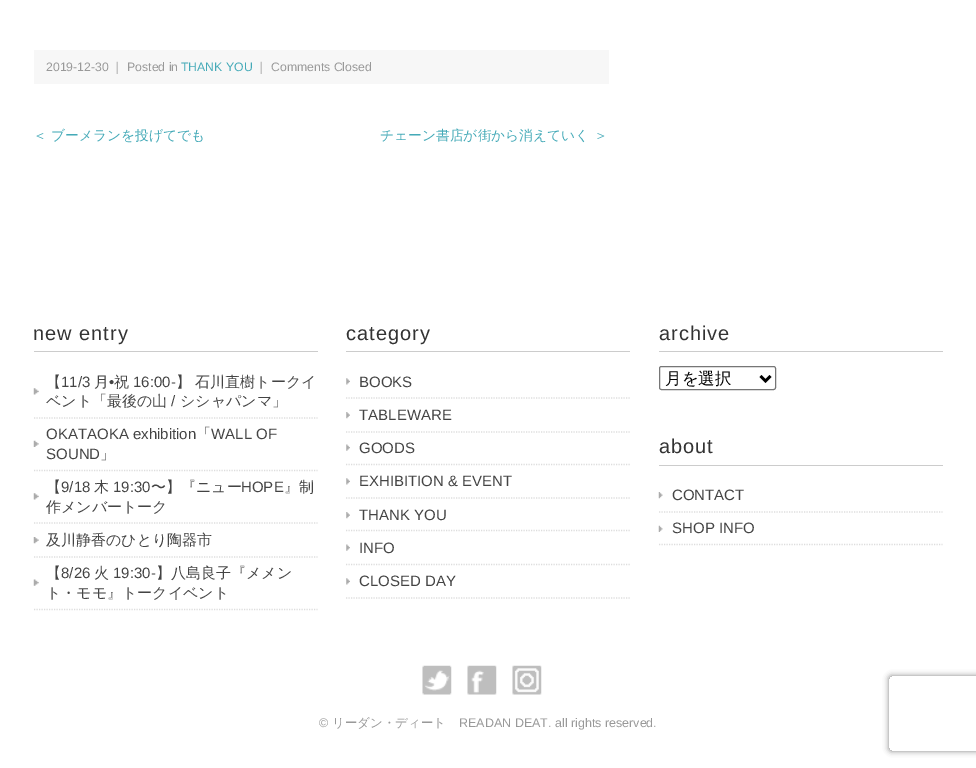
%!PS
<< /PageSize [976 768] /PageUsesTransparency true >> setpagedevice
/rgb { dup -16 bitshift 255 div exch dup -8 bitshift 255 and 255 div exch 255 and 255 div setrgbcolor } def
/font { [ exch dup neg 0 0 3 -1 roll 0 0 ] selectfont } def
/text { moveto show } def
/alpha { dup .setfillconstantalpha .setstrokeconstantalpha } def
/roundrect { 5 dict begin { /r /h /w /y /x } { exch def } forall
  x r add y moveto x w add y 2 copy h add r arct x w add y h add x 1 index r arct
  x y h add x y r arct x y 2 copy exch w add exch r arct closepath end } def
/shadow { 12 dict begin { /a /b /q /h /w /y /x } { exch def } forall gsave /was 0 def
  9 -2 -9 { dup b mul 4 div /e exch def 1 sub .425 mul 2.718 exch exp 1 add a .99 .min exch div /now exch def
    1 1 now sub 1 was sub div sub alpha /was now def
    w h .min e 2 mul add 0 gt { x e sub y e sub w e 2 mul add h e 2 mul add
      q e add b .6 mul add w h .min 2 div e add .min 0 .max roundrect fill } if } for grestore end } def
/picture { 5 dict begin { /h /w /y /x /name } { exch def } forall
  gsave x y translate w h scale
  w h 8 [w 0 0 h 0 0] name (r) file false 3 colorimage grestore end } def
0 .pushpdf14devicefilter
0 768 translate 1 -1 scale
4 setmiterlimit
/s1 { /LiberationSans-Regular 12.25 font 16#999999 rgb } def
/s2 { /WenQuanYiZenHei-Medium 12.25 font 16#999999 rgb } def
/s3 { /LiberationSans-Regular 12.25 font 16#45AAB8 rgb } def
/s4 { /WenQuanYiZenHei-Medium 13.75 font 16#45AAB8 rgb } def
/s5 { /WenQuanYiZenHei-Medium 15 font 16#444444 rgb } def
/s6 { /LiberationSans-Regular 15 font 16#444444 rgb } def
/s7 { /WenQuanYiZenHei-Medium 16.5 font 16#000000 rgb } def
/s8 { /LiberationSans-Regular 12.5 font 16#999999 rgb } def
/s9 { /WenQuanYiZenHei-Medium 12.5 font 16#999999 rgb } def
16#FFFFFF rgb
0 0 976 768 rectfill
16#F7F7F7 rgb
34 50 575 34 rectfill
s1
(2019-12-30) 46 71 text
s2
(｜) 111 71 text
s1
(Posted in) 127 71 text
s3
(THANK YOU) 181 71 text
s2
(｜) 255 71 text
s1
(Comments Closed) 271 71 text
s4
(＜ ブーメランを投げてでも) 33 140 text
(チェーン書店が街から消えていく ＞) 380 140 text
16#CCCCCC rgb
34 351 284 1 rectfill
/LiberationSans-Regular 20 font
16#333333 rgb
33 340 moveto 1 0 (new entry) ashow
16#DDDDDD rgb
1.2 setlinewidth
[1.25 1.25] 0 setdash
34 418 moveto 317.5 418 lineto stroke
(pic1.raw) 33 388 6 7 picture
s5
(【) 46 387 text
s6
(11/3) 61 387 text
s5
(月) 94 387 text
s6
(•) 109 387 text
s5
(祝) 114 387 text
s6
(16:00-) 133 387 text
s5
(】 石川直樹トークイ) 176 387 text
(ベント「最後の山) 46 406 text
s6
(/) 171 406 text
s5
(シシャパンマ」) 180 406 text
16#DDDDDD rgb
34 470.5 moveto 317.5 470.5 lineto stroke
(pic2.raw) 33 440 6 7 picture
s6
(OKATAOKA exhibition) 46 439 text
s5
(「) 196 439 text
s6
(WALL OF) 211 439 text
(SOUND) 46 459 text
s5
(」) 100 459 text
16#DDDDDD rgb
34 523 moveto 317.5 523 lineto stroke
(pic1.raw) 33 493 6 7 picture
s5
(【) 46 492 text
s6
(9/18) 61 492 text
s5
(木) 94 492 text
s6
(19:30) 113 492 text
s5
(〜】『ニュー) 151 492 text
s6
(HOPE) 241 492 text
s5
(』制) 284 492 text
(作メンバートーク) 46 512 text
16#DDDDDD rgb
34 557 moveto 317.5 557 lineto stroke
(pic3.raw) 33 537 6 7 picture
s5
(及川静香のひとり陶器市) 46 545 text
16#DDDDDD rgb
34 609.5 moveto 317.5 609.5 lineto stroke
(pic4.raw) 33 579 6 7 picture
s5
(【) 46 578 text
s6
(8/26) 61 578 text
s5
(火) 94 578 text
s6
(19:30-) 113 578 text
s5
(】八島良子『メメン) 156 578 text
(ト・モモ』トークイベント) 46 598 text
16#CCCCCC rgb
346 351 284 1 rectfill
/LiberationSans-Regular 20 font
16#333333 rgb
346 340 moveto 1 0 (category) ashow
16#DDDDDD rgb
346 398 moveto 630 398 lineto stroke
(pic5.raw) 346 378 4 7 picture
s6
(BOOKS) 359 387 text
16#DDDDDD rgb
346 432 moveto 630 432 lineto stroke
(pic6.raw) 346 412 4 7 picture
s6
(TABLEWARE) 359 420 text
16#DDDDDD rgb
346 464.5 moveto 630 464.5 lineto stroke
(pic7.raw) 346 444 4 7 picture
s6
(GOODS) 359 453 text
16#DDDDDD rgb
346 498 moveto 630 498 lineto stroke
(pic5.raw) 346 478 4 7 picture
s6
(EXHIBITION & EVENT) 359 486 text
16#DDDDDD rgb
346 530.5 moveto 630 530.5 lineto stroke
(pic6.raw) 346 512 4 7 picture
s6
(THANK YOU) 359 520 text
16#DDDDDD rgb
346 564.5 moveto 630 564.5 lineto stroke
(pic7.raw) 346 544 4 7 picture
s6
(INFO) 359 553 text
16#DDDDDD rgb
346 598 moveto 630 598 lineto stroke
(pic5.raw) 346 578 4 7 picture
s6
(CLOSED DAY) 359 586 text
16#CCCCCC rgb
659 351 284 1 rectfill
/LiberationSans-Regular 20 font
16#333333 rgb
659 340 moveto 1 0 (archive) ashow
16#767676 rgb
1 setlinewidth
[] 0 setdash
659.5 366.5 116 23 2 roundrect stroke
16#000000 rgb
2.5 setlinewidth
760.5 376 moveto 765.5 381 lineto 770.5 376 lineto stroke
s7
(月を選択) 665 384 text
16#CCCCCC rgb
659 465 284 1 rectfill
/LiberationSans-Regular 20 font
16#333333 rgb
659 453 moveto 1 0 (about) ashow
16#DDDDDD rgb
1.2 setlinewidth
[1.25 1.25] 0 setdash
659 512 moveto 942.5 512 lineto stroke
(pic8.raw) 658 492 5 7 picture
s6
(CONTACT) 672 500 text
16#DDDDDD rgb
659 544.5 moveto 942.5 544.5 lineto stroke
(pic9.raw) 658 525 5 7 picture
s6
(SHOP INFO) 672 533 text
(pic10.raw) 422 665 30 30 picture
(pic11.raw) 467 665 30 30 picture
(pic12.raw) 512 665 30 30 picture
s8
(©) 319 727 text
s9
(リーダン・ディート) 332 727 text
s8
(READAN DEAT. all rights reserved.) 459 727 text
gsave
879 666 moveto 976 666 lineto 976 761 lineto 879 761 lineto closepath 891.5 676 moveto 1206.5 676 lineto 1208 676 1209 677 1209 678.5 curveto 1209 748.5 lineto 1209 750 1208 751 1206.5 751 curveto 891.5 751 lineto 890 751 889 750 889 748.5 curveto 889 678.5 lineto 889 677 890 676 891.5 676 curveto closepath eoclip newpath
16#808080 rgb
889 676 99 75 2.5 3 1 shadow
grestore
.poppdf14devicefilter showpage
